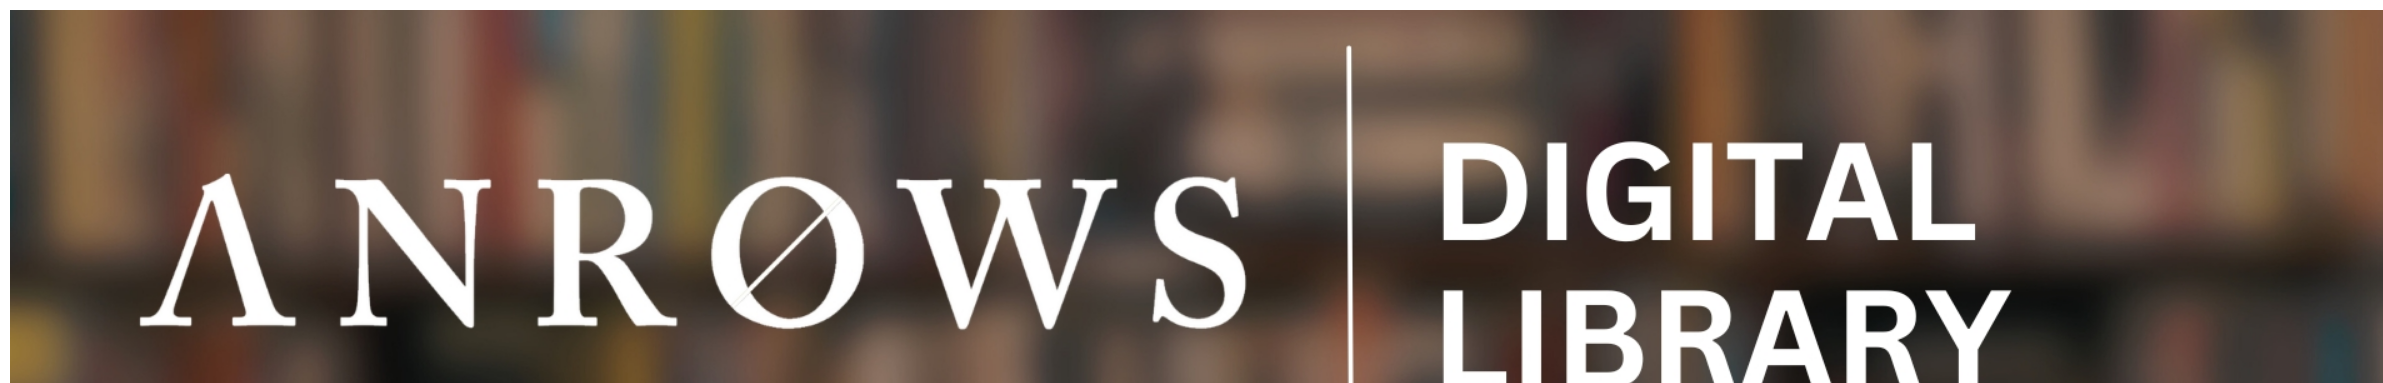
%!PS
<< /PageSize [2383 383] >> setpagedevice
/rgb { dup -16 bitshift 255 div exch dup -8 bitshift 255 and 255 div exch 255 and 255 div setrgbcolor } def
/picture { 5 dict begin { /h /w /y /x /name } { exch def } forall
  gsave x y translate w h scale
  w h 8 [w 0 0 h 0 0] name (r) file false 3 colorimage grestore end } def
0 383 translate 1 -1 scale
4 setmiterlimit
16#FFFFFF rgb
0 0 2383 383 rectfill
(pic1.raw) 10 10 2373 373 picture
showpage
